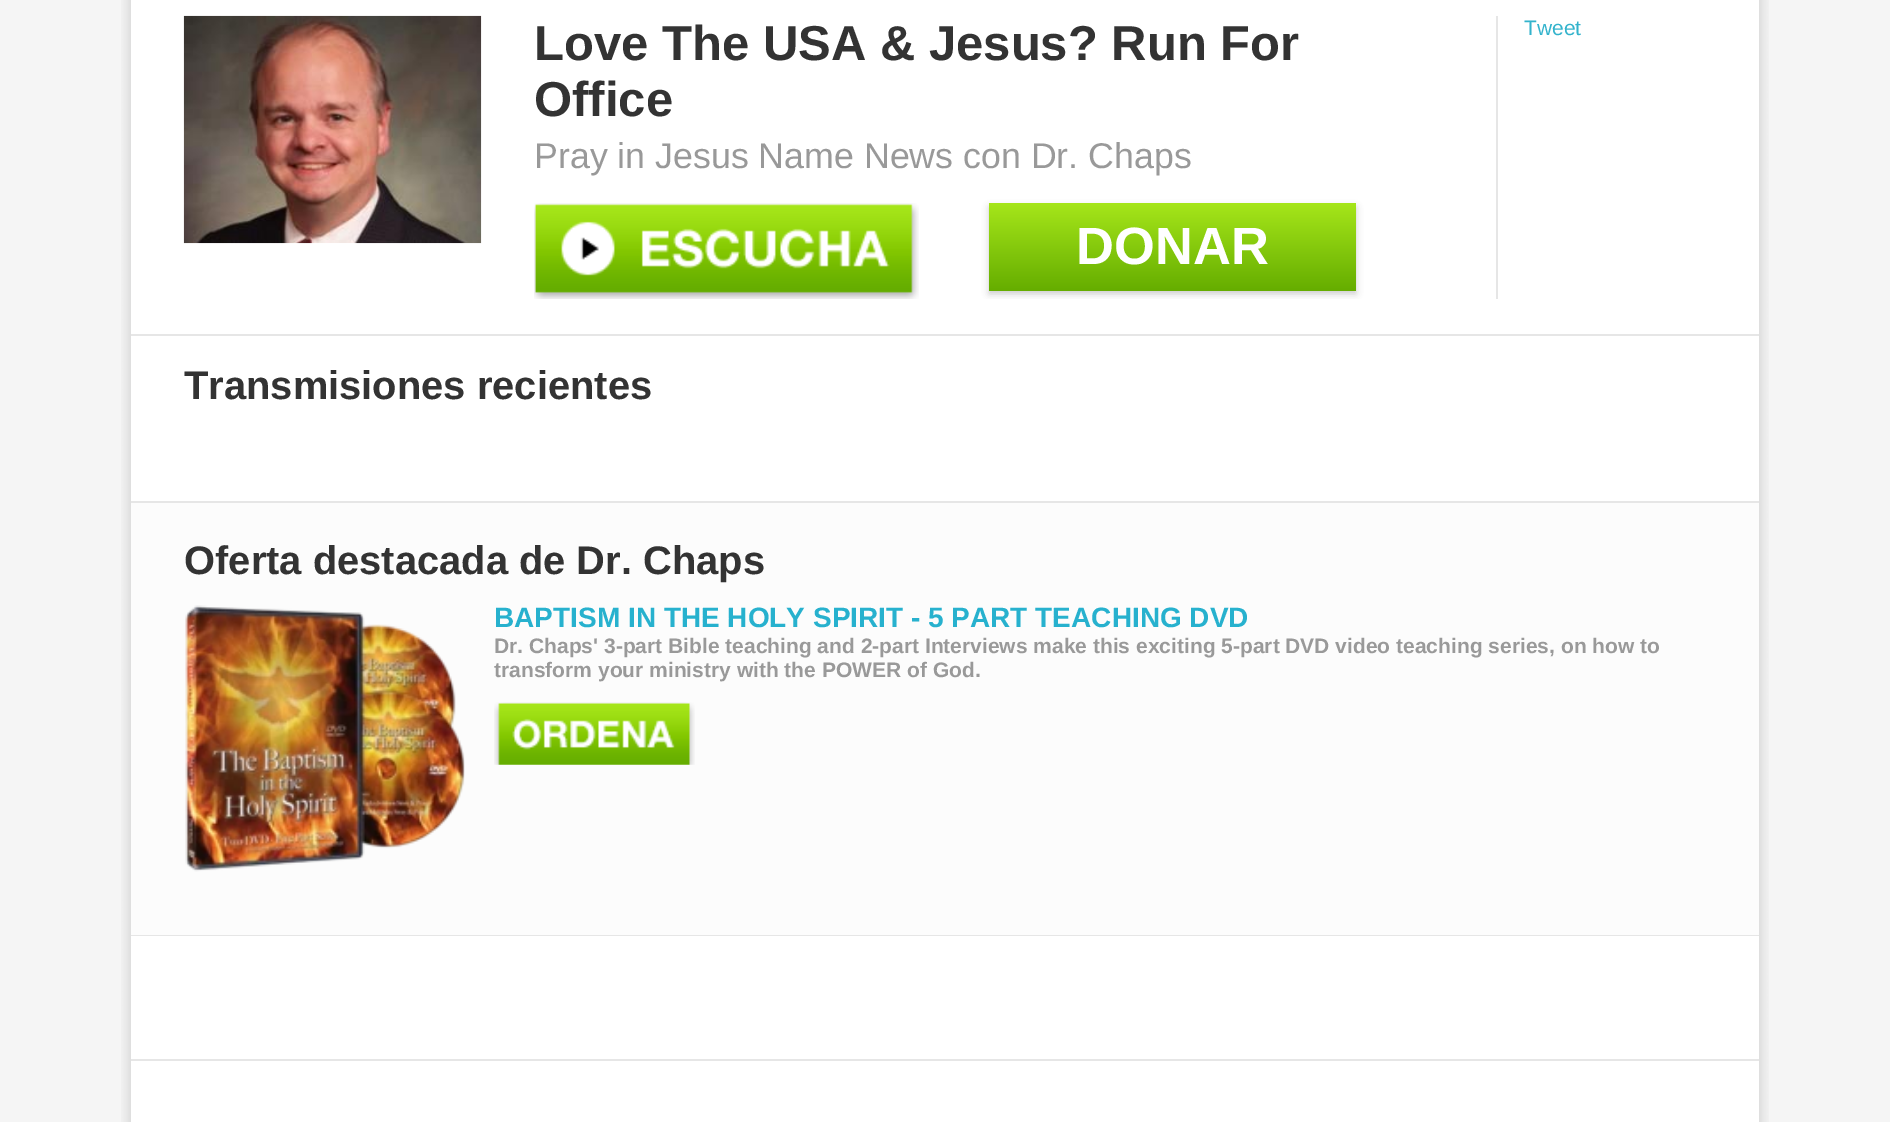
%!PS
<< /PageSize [1890 1122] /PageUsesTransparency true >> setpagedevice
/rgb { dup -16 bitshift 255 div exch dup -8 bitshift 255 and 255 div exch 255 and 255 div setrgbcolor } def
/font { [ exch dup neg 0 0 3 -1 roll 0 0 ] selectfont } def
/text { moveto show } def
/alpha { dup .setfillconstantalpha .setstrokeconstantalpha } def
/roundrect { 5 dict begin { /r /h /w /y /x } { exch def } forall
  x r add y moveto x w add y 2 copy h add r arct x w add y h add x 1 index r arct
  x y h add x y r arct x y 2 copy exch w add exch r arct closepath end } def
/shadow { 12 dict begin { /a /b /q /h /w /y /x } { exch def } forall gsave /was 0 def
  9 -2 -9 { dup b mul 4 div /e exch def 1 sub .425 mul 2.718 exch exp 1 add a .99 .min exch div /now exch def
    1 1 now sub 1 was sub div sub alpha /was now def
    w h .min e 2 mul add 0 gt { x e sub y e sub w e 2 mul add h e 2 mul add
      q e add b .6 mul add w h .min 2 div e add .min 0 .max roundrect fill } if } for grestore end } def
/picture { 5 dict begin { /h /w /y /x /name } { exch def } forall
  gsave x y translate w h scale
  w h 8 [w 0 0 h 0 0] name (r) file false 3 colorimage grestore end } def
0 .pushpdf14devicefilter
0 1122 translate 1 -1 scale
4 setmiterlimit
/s1 { /LiberationSans-Bold 49 font 16#333333 rgb } def
/s2 { /LiberationSans-Regular 35.75 font 16#999999 rgb } def
/s3 { /LiberationSans-Bold 52.5 font 16#FFFFFF rgb } def
/s4 { /LiberationSans-Regular 21 font 16#33B3CC rgb } def
/s5 { /LiberationSans-Bold 39.9 font 16#333333 rgb } def
/s6 { /LiberationSans-Bold 28 font 16#27B1CE rgb } def
/s7 { /LiberationSans-Bold 21 font 16#999999 rgb } def
16#F5F5F5 rgb
0 0 1890 1122 rectfill
(pic1.raw) 1759 0 10 1122 picture
(pic2.raw) 121 0 10 1122 picture
16#FFFFFF rgb
131 0 1628 334 rectfill
16#E6E6E6 rgb
131 334 1628 2 rectfill
1496 16 2 283 rectfill
(pic3.raw) 183 15 299 229 picture
s1
(Love The USA & Jesus? Run For) 534 60 text
(Office) 534 116 text
s2
(Pray in Jesus Name News con Dr. Chaps) 534 168 text
(pic4.raw) 534 203 385 96 picture
gsave
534 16 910 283 rectclip
16#CCCCCC rgb
989 207 367 87 0 3.5 1 shadow
grestore
gsave 989 203 moveto 1356 203 lineto 1356 291 lineto 989 291 lineto closepath clip newpath
<< /ShadingType 2 /ColorSpace /DeviceRGB /Coords [1173 203 1173 291] /Extend [true true] /Function << /FunctionType 2 /Domain [0 1] /C0 [0.651 0.902 0.102] /C1 [0.396 0.678 0] /N 1 >> >> shfill grestore
s3
(DONAR) 1076 264 text
s4
(Tweet) 1524 35 text
16#FFFFFF rgb
131 336 1628 165 rectfill
s5
(Transmisiones recientes) 184 399 text
16#FCFCFC rgb
131 503 1628 432 rectfill
16#E6E6E6 rgb
131 501 1628 2 rectfill
131 935 1628 1 rectfill
s5
(Oferta destacada de Dr. Chaps) 184 574 text
(pic5.raw) 185 605 280 267 picture
s6
(BAPTISM IN THE HOLY SPIRIT - 5 PART TEACHING DVD) 494 627 text
s7
(Dr. Chaps' 3-part Bible teaching and 2-part Interviews make this exciting 5-part DVD video teaching series, on how to) 494 653 text
(transform your ministry with the POWER of God.) 494 677 text
(pic6.raw) 494 702 201 63 picture
16#FFFFFF rgb
131 936 1628 123 rectfill
131 1061 1628 61 rectfill
16#E6E6E6 rgb
131 1059 1628 2 rectfill
.poppdf14devicefilter showpage
